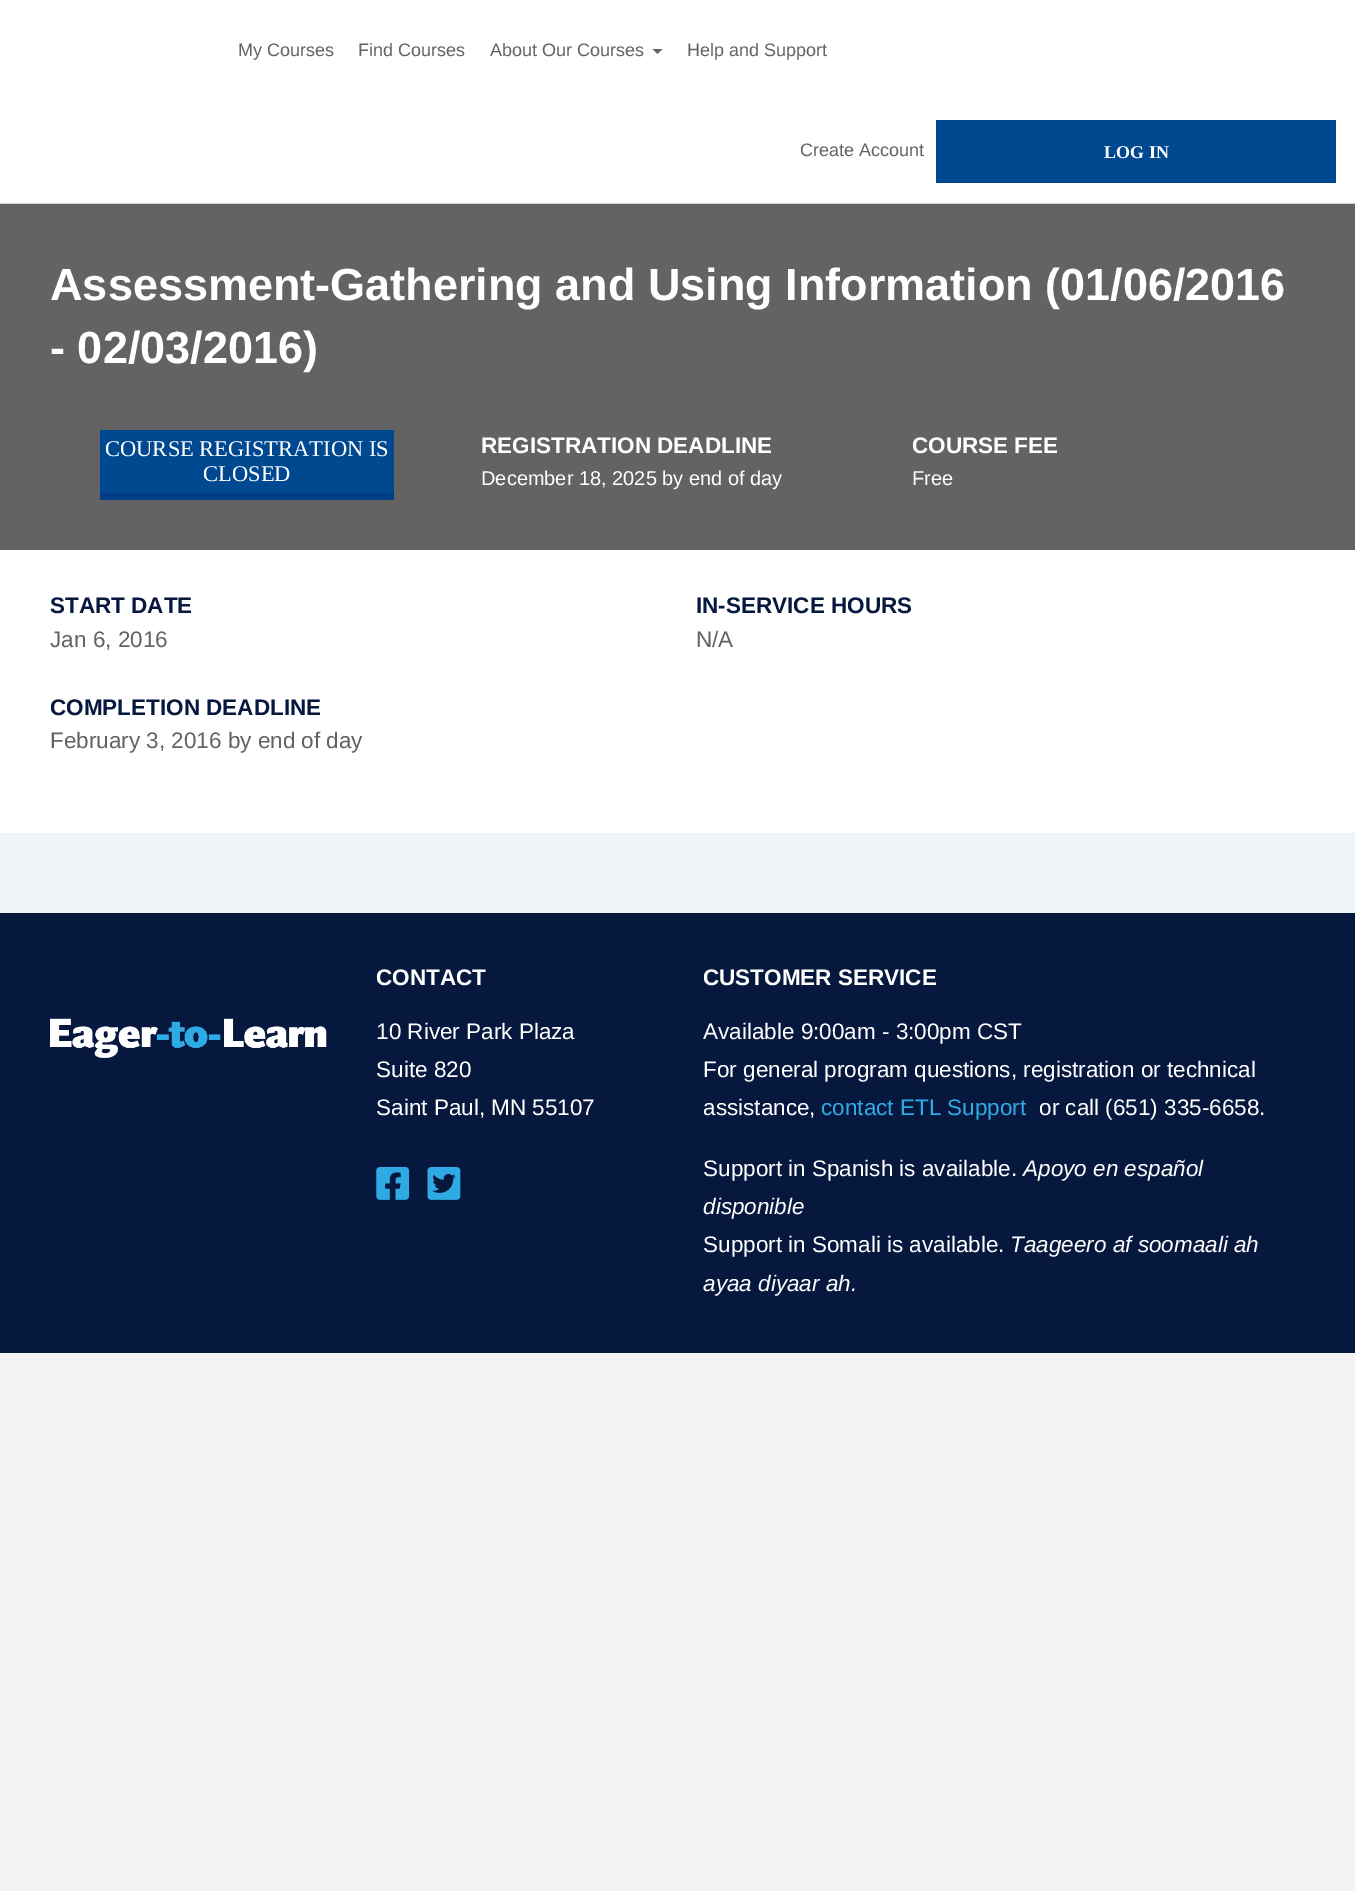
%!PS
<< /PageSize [1355 1891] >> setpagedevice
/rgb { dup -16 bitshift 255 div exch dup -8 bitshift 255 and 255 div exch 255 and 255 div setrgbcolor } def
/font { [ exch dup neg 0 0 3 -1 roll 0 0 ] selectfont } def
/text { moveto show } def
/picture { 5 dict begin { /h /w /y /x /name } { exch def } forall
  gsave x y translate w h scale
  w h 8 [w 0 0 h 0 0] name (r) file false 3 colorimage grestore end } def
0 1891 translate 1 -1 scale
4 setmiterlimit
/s1 { /LiberationSans-Regular 18 font 16#636363 rgb } def
/s2 { /LiberationSerif-Bold 18 font 16#FFFFFF rgb } def
/s3 { /LiberationSans-Bold 45 font 16#FFFFFF rgb } def
/s4 { /LiberationSerif-Regular 22.5 font 16#FFFFFF rgb } def
/s5 { /LiberationSans-Bold 22.5 font 16#FFFFFF rgb } def
/s6 { /LiberationSans-Regular 20 font 16#FFFFFF rgb } def
/s7 { /LiberationSans-Bold 22.5 font 16#07183E rgb } def
/s8 { /LiberationSans-Regular 22.5 font 16#636363 rgb } def
/s9 { /LiberationSans-Regular 22.5 font 16#FFFFFF rgb } def
/s10 { /LiberationSans-Regular 22.5 font 16#2FAAE5 rgb } def
/s11 { /LiberationSans-Italic 22.5 font 16#FFFFFF rgb } def
16#F2F2F2 rgb
0 0 1355 1891 rectfill
16#FFFFFF rgb
0 0 1355 203 rectfill
16#D1D1D1 rgb
0 203 1355 1 rectfill
s1
(My Courses) 238 56 text
(Find Courses) 358 56 text
(About Our Courses) 490 56 text
652.5 49 moveto 662.5 49 lineto 657.5 54 lineto closepath fill
(Help and Support) 687 56 text
(Create Account) 800 156 text
16#004990 rgb
936 120 400 63 rectfill
s2
(LOG IN) 1104 158 text
16#636363 rgb
0 204 1355 346 rectfill
s3
(Assessment-Gathering and Using Information \(01/06/2016) 50 300 text
(- 02/03/2016\)) 50 363 text
16#003F86 rgb
100 492 moveto 100 500 lineto 394 500 lineto 394 438 lineto 394 492 lineto closepath fill
16#004990 rgb
100 430 294 63 rectfill
s4
(COURSE REGISTRATION IS) 105 456 text
(CLOSED) 203 481 text
s5
(REGISTRATION DEADLINE) 481 453 text
s6
(December 18, 2025 by end of day) 481 485 text
s5
(COURSE FEE) 912 453 text
s6
(Free) 912 485 text
0 550 1355 283 rectfill
s7
(START DATE) 50 613 text
s8
(Jan 6, 2016) 50 647 text
s7
(COMPLETION DEADLINE) 50 715 text
s8
(February 3, 2016 by end of day) 50 748 text
s7
(IN-SERVICE HOURS) 696 613 text
s8
(N/A) 696 647 text
16#EFF4F8 rgb
0 833 1355 80 rectfill
16#07183E rgb
0 913 1355 440 rectfill
(pic1.raw) 50 1018 277 40 picture
s5
(CONTACT) 376 985 text
s9
(10 River Park Plaza) 376 1039 text
(Suite 820) 376 1077 text
(Saint Paul, MN 55107) 376 1115 text
(pic2.raw) 376 1167 34 33 picture
(pic3.raw) 427 1167 34 33 picture
s5
(CUSTOMER SERVICE) 703 985 text
s9
(Available 9:00am - 3:00pm CST) 703 1039 text
(For general program questions, registration or technical) 703 1077 text
(assistance,) 703 1115 text
s10
(contact ETL Support) 821 1115 text
s9
(or call \(651\) 335-6658.) 1039 1115 text
(Support in Spanish is available.) 703 1176 text
s11
(Apoyo en español) 1023 1176 text
(disponible) 703 1214 text
s9
(Support in Somali is available.) 703 1252 text
s11
(Taageero af soomaali ah) 1010 1252 text
(ayaa diyaar ah.) 703 1291 text
showpage
